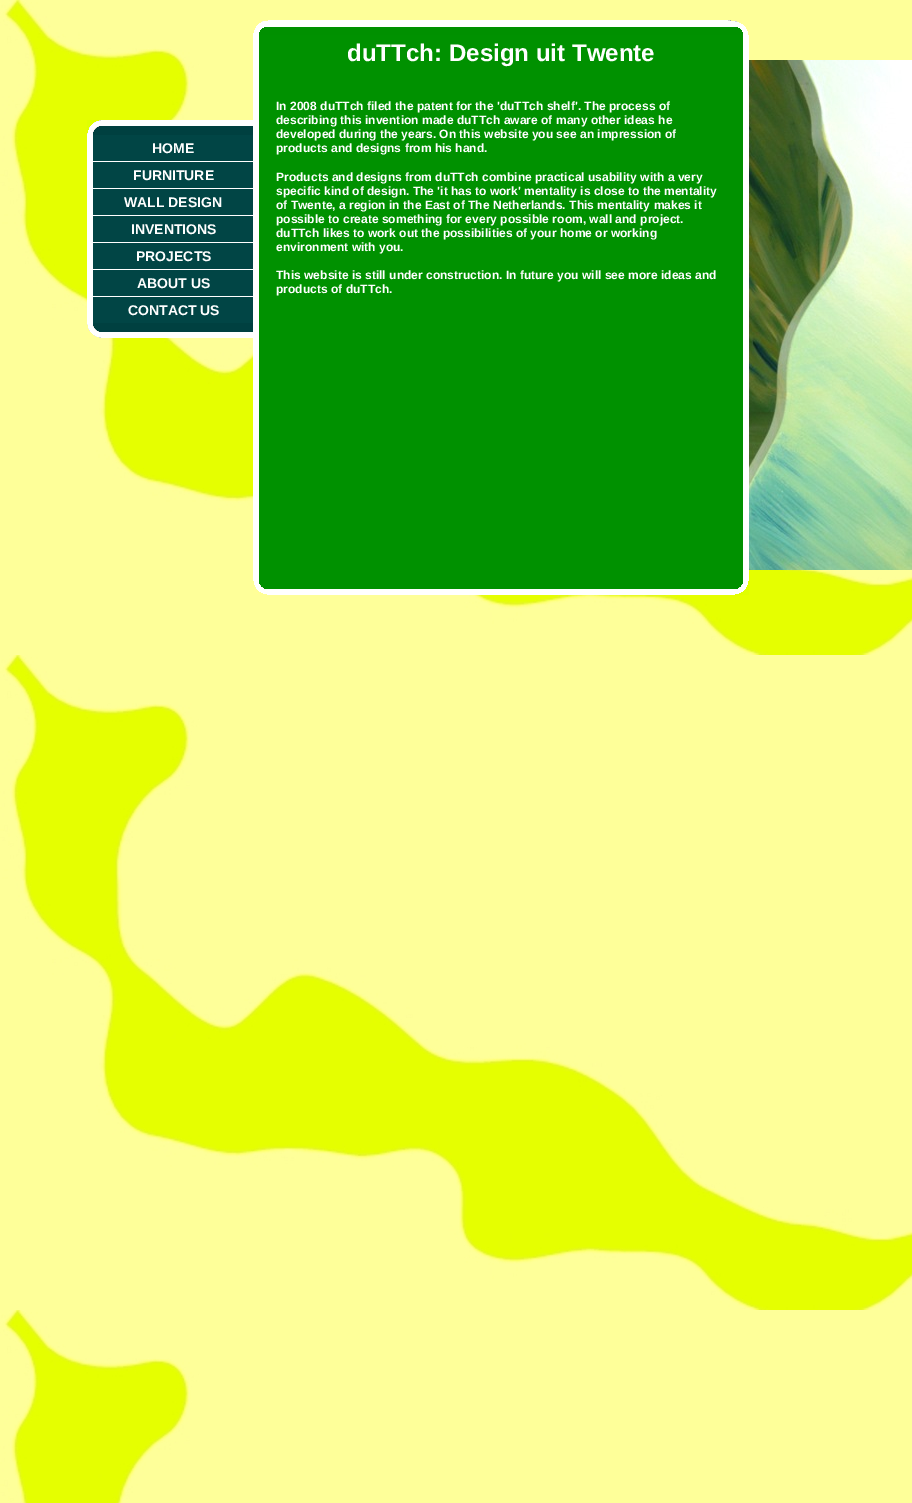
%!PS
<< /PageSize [912 1503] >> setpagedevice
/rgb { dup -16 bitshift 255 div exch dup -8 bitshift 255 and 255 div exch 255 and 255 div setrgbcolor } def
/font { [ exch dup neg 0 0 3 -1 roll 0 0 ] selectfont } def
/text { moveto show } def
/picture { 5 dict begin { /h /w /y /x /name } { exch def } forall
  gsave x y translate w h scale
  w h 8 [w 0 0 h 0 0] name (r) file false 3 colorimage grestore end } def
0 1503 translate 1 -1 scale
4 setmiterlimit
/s1 { /LiberationSans-Bold 14 font 16#FFFFFF rgb } def
/s2 { /LiberationSans-Bold 24.1 font 16#FFFFFF rgb } def
/s3 { /LiberationSans-Bold 12.05 font 16#FFFFFF rgb } def
16#FFFFFF rgb
0 0 912 1503 rectfill
(pic1.raw) 0 0 912 1503 picture
(pic2.raw) 749 60 163 510 picture
(pic3.raw) 87 323 166 15 picture
(pic4.raw) 87 120 166 15 picture
16#014545 rgb
93 135 160 188 rectfill
16#FFFFFF rgb
87 135 6 188 rectfill
s1
(HOME) 152 153 text
93 161 160 1 rectfill
(FURNITURE) 133 180 text
93 188 160 1 rectfill
(WALL DESIGN) 124 207 text
93 215 160 1 rectfill
(INVENTIONS) 131 234 text
93 242 160 1 rectfill
(PROJECTS) 136 261 text
93 269 160 1 rectfill
(ABOUT US) 137 288 text
93 296 160 1 rectfill
(CONTACT US) 128 315 text
(pic5.raw) 253 580 496 15 picture
(pic6.raw) 253 20 496 15 picture
16#009100 rgb
259 35 484 545 rectfill
16#FFFFFF rgb
743 35 6 545 rectfill
253 35 6 545 rectfill
s2
(duTTch: Design uit Twente) 347 61 text
s3
(In 2008 duTTch filed the patent for the 'duTTch shelf'. The process of) 276 110 text
(describing this invention made duTTch aware of many other ideas he) 276 124 text
(developed during the years. On this website you see an impression of) 276 138 text
(products and designs from his hand.) 276 152 text
(Products and designs from duTTch combine practical usability with a very) 276 181 text
(specific kind of design. The 'it has to work' mentality is close to the mentality) 276 195 text
(of Twente, a region in the East of The Netherlands. This mentality makes it) 276 209 text
(possible to create something for every possible room, wall and project.) 276 223 text
(duTTch likes to work out the possibilities of your home or working) 276 237 text
(environment with you.) 276 251 text
(This website is still under construction. In future you will see more ideas and) 276 279 text
(products of duTTch.) 276 293 text
showpage
